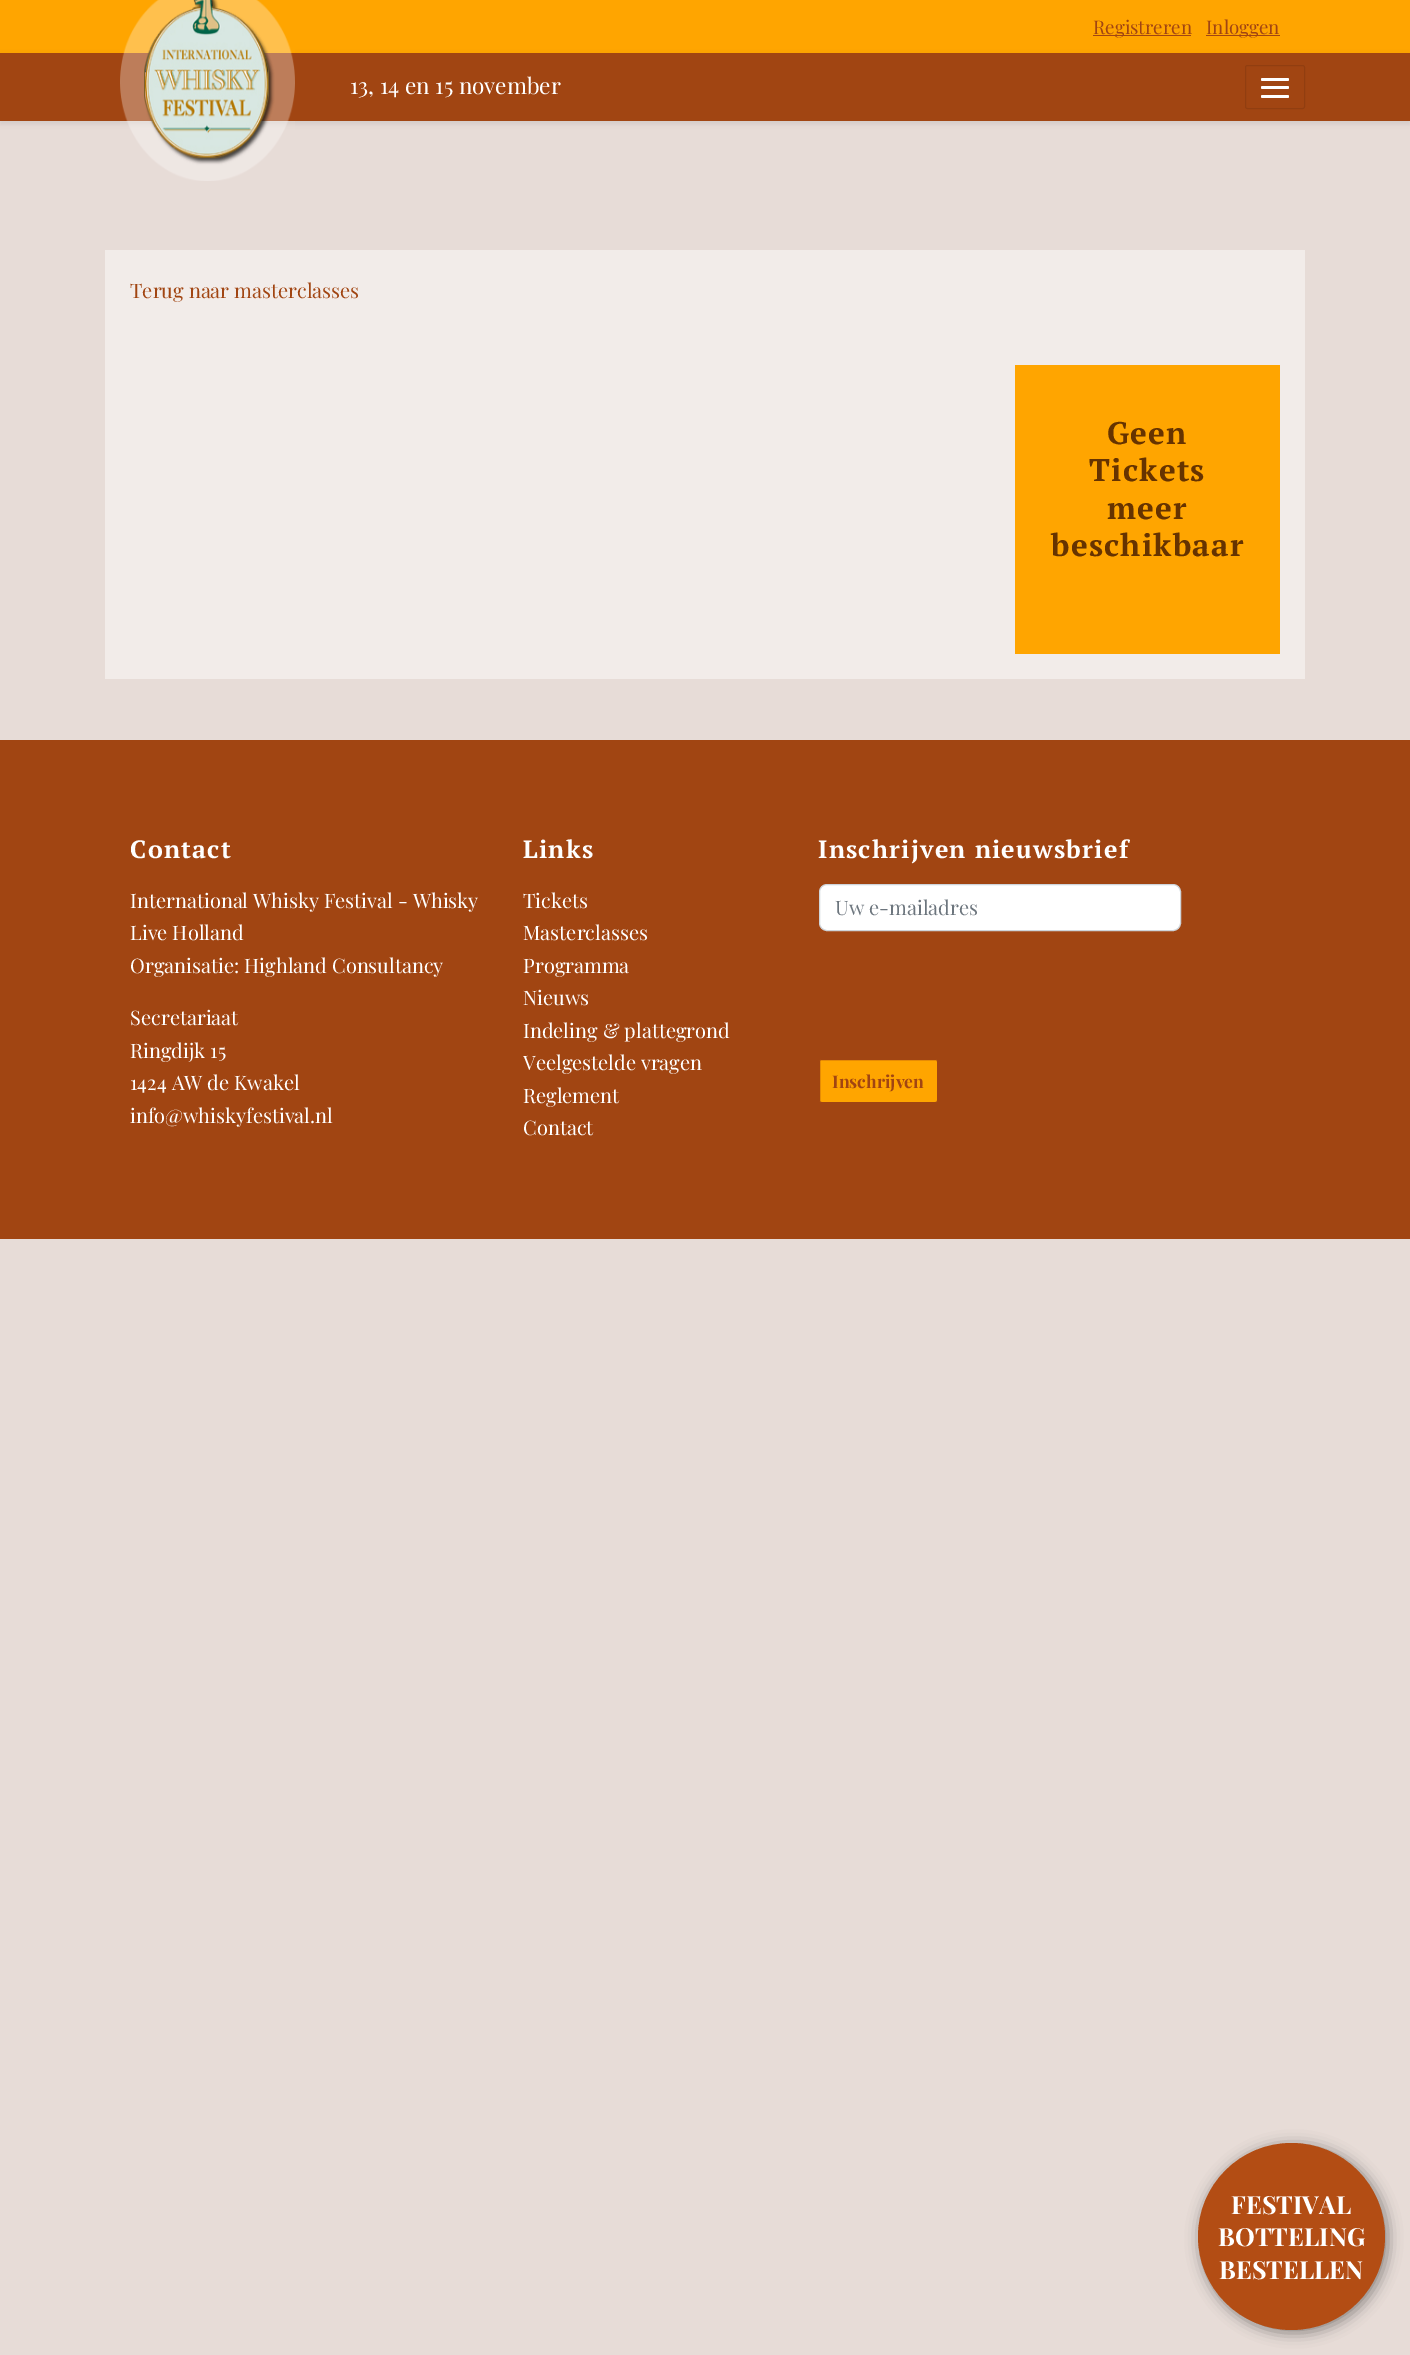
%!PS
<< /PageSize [1410 2355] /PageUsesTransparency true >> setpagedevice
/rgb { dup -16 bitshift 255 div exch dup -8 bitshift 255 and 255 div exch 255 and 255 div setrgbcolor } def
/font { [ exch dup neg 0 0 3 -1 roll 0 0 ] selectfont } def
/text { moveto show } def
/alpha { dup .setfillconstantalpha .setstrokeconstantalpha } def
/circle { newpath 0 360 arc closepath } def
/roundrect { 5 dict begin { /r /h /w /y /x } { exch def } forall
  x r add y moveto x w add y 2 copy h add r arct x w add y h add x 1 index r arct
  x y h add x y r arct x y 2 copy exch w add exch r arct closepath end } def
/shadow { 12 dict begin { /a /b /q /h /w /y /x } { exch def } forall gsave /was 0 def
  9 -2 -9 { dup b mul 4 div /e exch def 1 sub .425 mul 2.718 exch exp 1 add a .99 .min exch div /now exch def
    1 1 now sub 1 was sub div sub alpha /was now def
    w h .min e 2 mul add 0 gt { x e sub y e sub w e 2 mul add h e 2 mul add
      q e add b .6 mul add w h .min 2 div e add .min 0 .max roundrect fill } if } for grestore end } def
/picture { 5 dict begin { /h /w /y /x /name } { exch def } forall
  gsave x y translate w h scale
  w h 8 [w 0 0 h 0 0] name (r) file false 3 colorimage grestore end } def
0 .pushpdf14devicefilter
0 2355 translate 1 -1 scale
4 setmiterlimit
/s1 { /PlayfairDisplay-Regular 18.75 font 16#A14512 rgb } def
/s2 { /PlayfairDisplay-Regular 22.5 font 16#FFFFFF rgb } def
/s3 { /PlayfairDisplay-Regular 20 font 16#A14512 rgb } def
/s4 { /PlayfairDisplay-Regular 20 font 16#FFFFFF rgb } def
/s5 { /PlayfairDisplay-Regular 20 font 16#6C757D rgb } def
/s6 { /PlayfairDisplay-Bold 17.5 font 16#A14512 rgb } def
/s7 { /PlayfairDisplay-Bold 25 font 16#FFFFFF rgb } def
16#E7DCD7 rgb
0 0 1410 2355 rectfill
16#FFA500 rgb
0 0 1410 53 rectfill
16#A14512 rgb
1093 35 98 1 rectfill
s1
(Registreren) 1093 34 text
1206 35 74 1 rectfill
(Inloggen) 1206 34 text
16#000000 rgb
0 55 1410 69 0 2.5 0.07 shadow
16#A14512 rgb
0 53 1410 68 rectfill
(pic1.raw) 120 0 175 181 picture
s2
(13, 14 en 15 november) 350 94 text
16#913E10 rgb
1245.5 65.5 59 43 2 roundrect stroke
16#FFFFFF rgb
1261 78 28 3 1.5 roundrect fill
1261 86 28 3 1.5 roundrect fill
1261 95 28 3 1.5 roundrect fill
16#F2ECE9 rgb
105 250 1200 429 rectfill
s3
(Terug naar masterclasses) 130 298 text
16#FFA500 rgb
1015 365 265 289 rectfill
/PTSerif-Bold 31.25 font
16#663300 rgb
1107 444 moveto 1.25 0 (Geen) ashow
1089 481 moveto 1.25 0 (Tickets) ashow
1107 519 moveto 1.25 0 (meer) ashow
1051 556 moveto 1.25 0 (beschikbaar) ashow
16#A14512 rgb
0 740 1410 499 rectfill
/PTSerif-Bold 25 font
16#FFFFFF rgb
130 858 moveto 1.25 0 (Contact) ashow
s4
(International Whisky Festival - Whisky) 130 908 text
(Live Holland) 130 940 text
(Organisatie: Highland Consultancy) 130 973 text
(Secretariaat) 130 1025 text
(Ringdijk 15) 130 1058 text
(1424 AW de Kwakel) 130 1090 text
(info@whiskyfestival.nl) 130 1123 text
/PTSerif-Bold 25 font
523 858 moveto 1.25 0 (Links) ashow
s4
(Tickets) 523 908 text
(Masterclasses) 523 940 text
(Programma) 523 973 text
(Nieuws) 523 1005 text
(Indeling & plattegrond) 523 1038 text
(Veelgestelde vragen) 523 1070 text
(Reglement) 523 1103 text
(Contact) 523 1135 text
/PTSerif-Bold 25 font
818 858 moveto 1.25 0 (Inschrijven nieuwsbrief) ashow
820 885 360 45 6 roundrect fill
16#CED4DA rgb
819.5 884.5 361 46 7.5 roundrect stroke
s5
(Uw e-mailadres) 835 915 text
16#FFA500 rgb
819.5 1059.5 118 43 2 roundrect gsave fill grestore
16#A14512 rgb
stroke
s6
(Inschrijven) 832 1088 text
16#000000 rgb
1200 2145 188 188 94 7 0.4 shadow
16#B34D14 rgb
1291.5 2236.5 93.5 circle fill
s7
(FESTIVAL) 1231 2214 text
(BOTTELING) 1218 2246 text
(BESTELLEN) 1219 2279 text
.poppdf14devicefilter showpage
